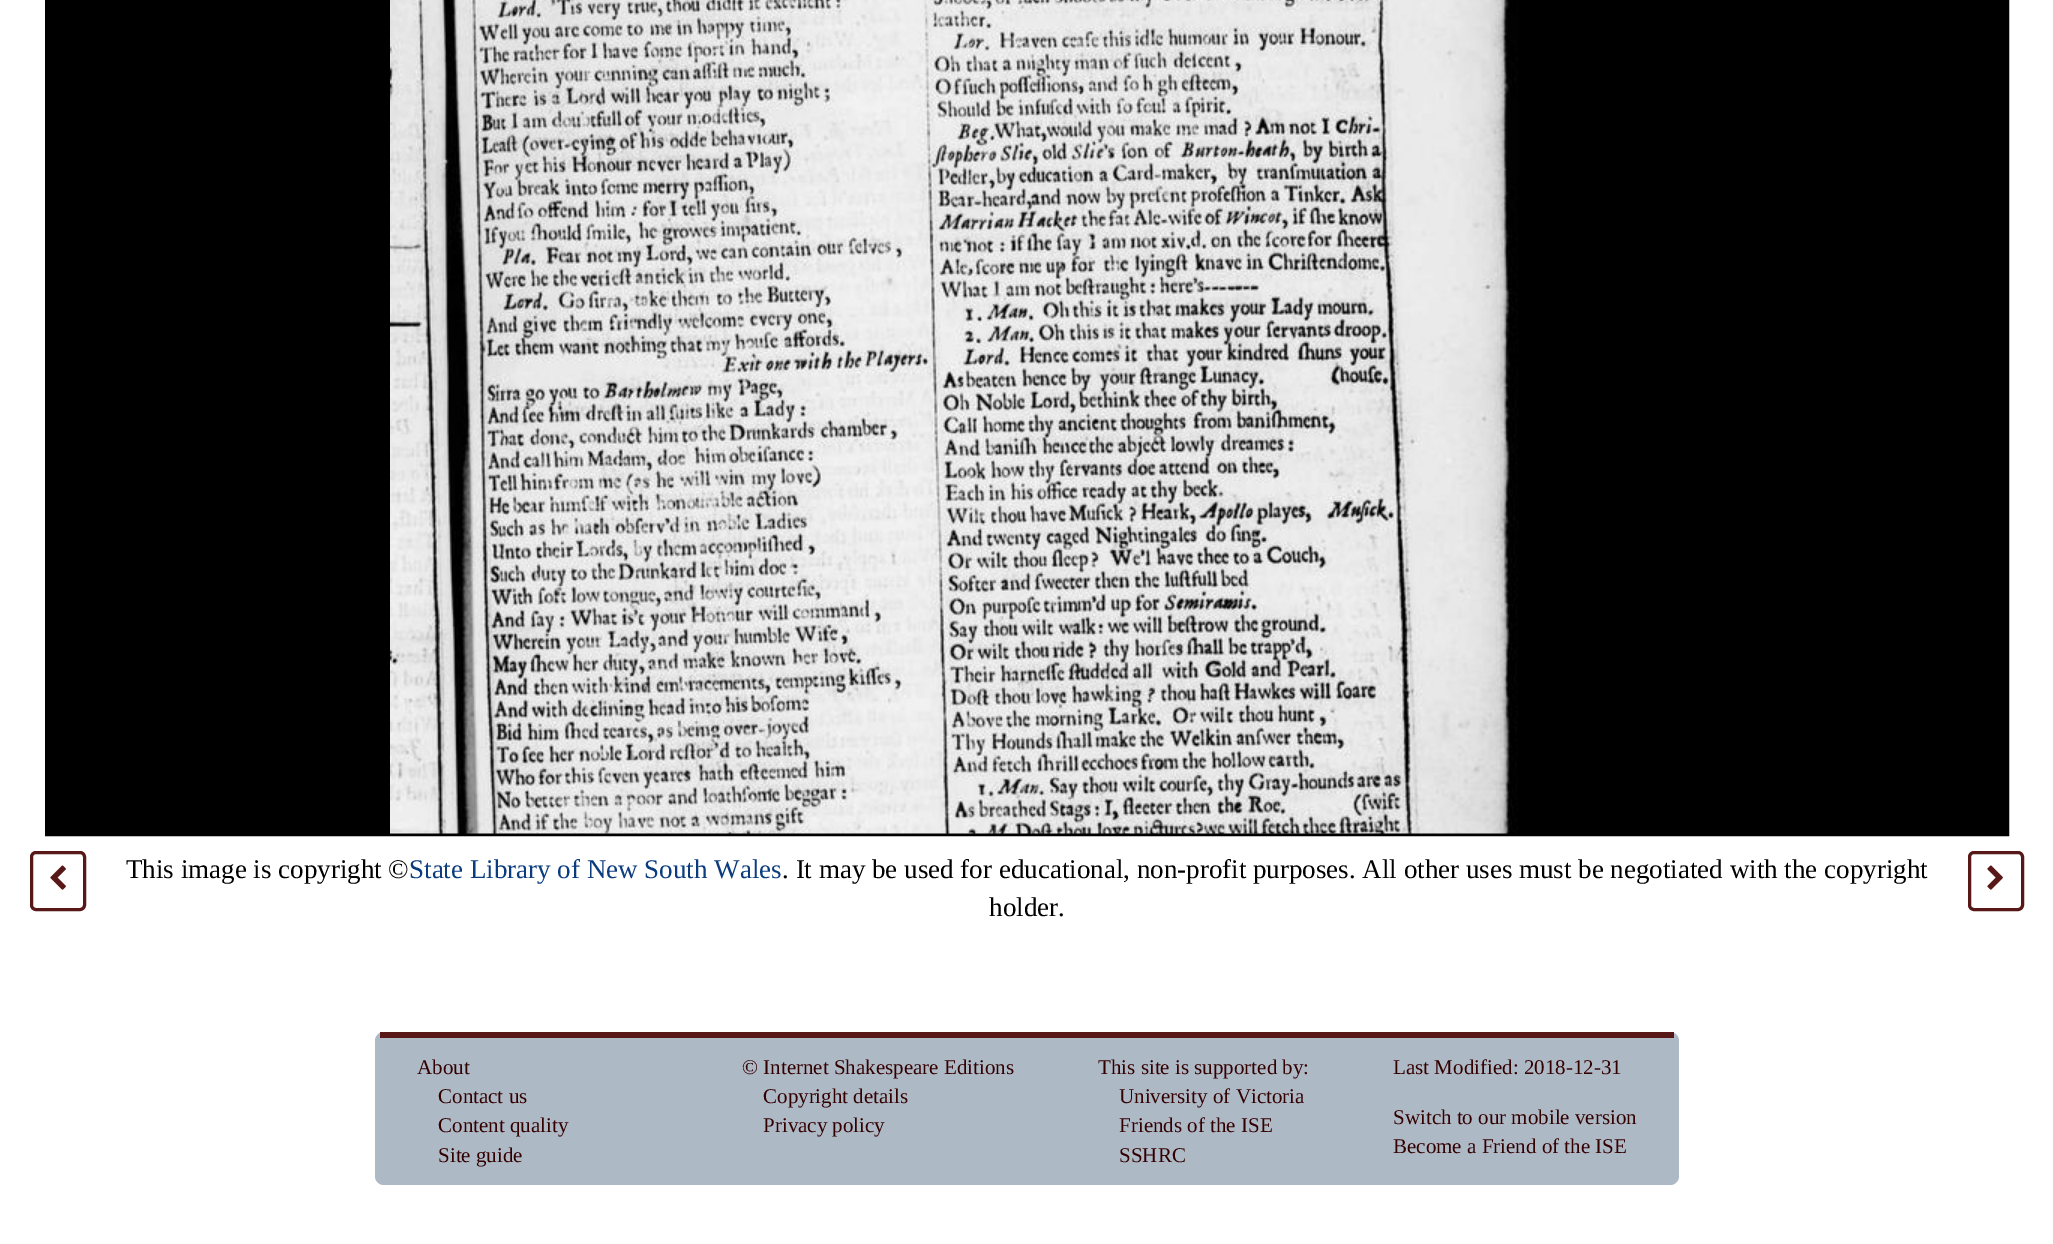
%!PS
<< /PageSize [2053 1244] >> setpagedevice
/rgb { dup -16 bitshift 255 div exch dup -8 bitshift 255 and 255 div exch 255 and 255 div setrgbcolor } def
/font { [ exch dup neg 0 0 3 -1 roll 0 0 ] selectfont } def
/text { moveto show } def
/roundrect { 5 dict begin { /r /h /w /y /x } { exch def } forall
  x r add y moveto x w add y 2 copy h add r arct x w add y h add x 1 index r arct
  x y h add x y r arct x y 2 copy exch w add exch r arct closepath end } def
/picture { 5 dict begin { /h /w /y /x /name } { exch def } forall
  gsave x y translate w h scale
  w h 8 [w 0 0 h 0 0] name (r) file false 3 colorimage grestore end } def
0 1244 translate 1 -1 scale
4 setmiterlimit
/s1 { /LiberationSerif-Regular 27 font 16#000000 rgb } def
/s2 { /LiberationSerif-Regular 27 font 16#0B3C7E rgb } def
/s3 { /LiberationSerif-Regular 21 font 16#330000 rgb } def
16#FFFFFF rgb
0 0 2053 1244 rectfill
16#000000 rgb
2 setlinewidth
46 -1 1962 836 rectstroke
47 0 1960 834 rectfill
(pic1.raw) 390 0 1128 834 picture
16#591818 rgb
3 setlinewidth
31.5 852.5 53 57 4.5 roundrect stroke
(pic2.raw) 50 865 16 25 picture
s1
(This image is copyright ©) 126 878 text
s2
(State Library of New South Wales) 409 878 text
s1
(. It may be used for educational, non-profit purposes. All other uses must be negotiated with the copyright) 782 878 text
(holder.) 989 916 text
16#591818 rgb
1969.5 852.5 53 57 4.5 roundrect stroke
(pic3.raw) 1987 865 16 25 picture
16#AEB9C6 rgb
375 1032 1304 153 9 roundrect fill
16#591818 rgb
380 1032 1294 6 rectfill
s3
(About) 417 1074 text
(Contact us) 438 1103 text
(Content quality) 438 1132 text
(Site guide) 438 1162 text
(© Internet Shakespeare Editions) 742 1074 text
(Copyright details) 763 1103 text
(Privacy policy) 763 1132 text
(This site is supported by:) 1098 1074 text
(University of Victoria) 1119 1103 text
(Friends of the ISE) 1119 1132 text
(SSHRC) 1119 1162 text
(Last Modified: 2018-12-31) 1393 1074 text
(Switch to our mobile version) 1393 1124 text
(Become a Friend of the ISE) 1393 1153 text
showpage
